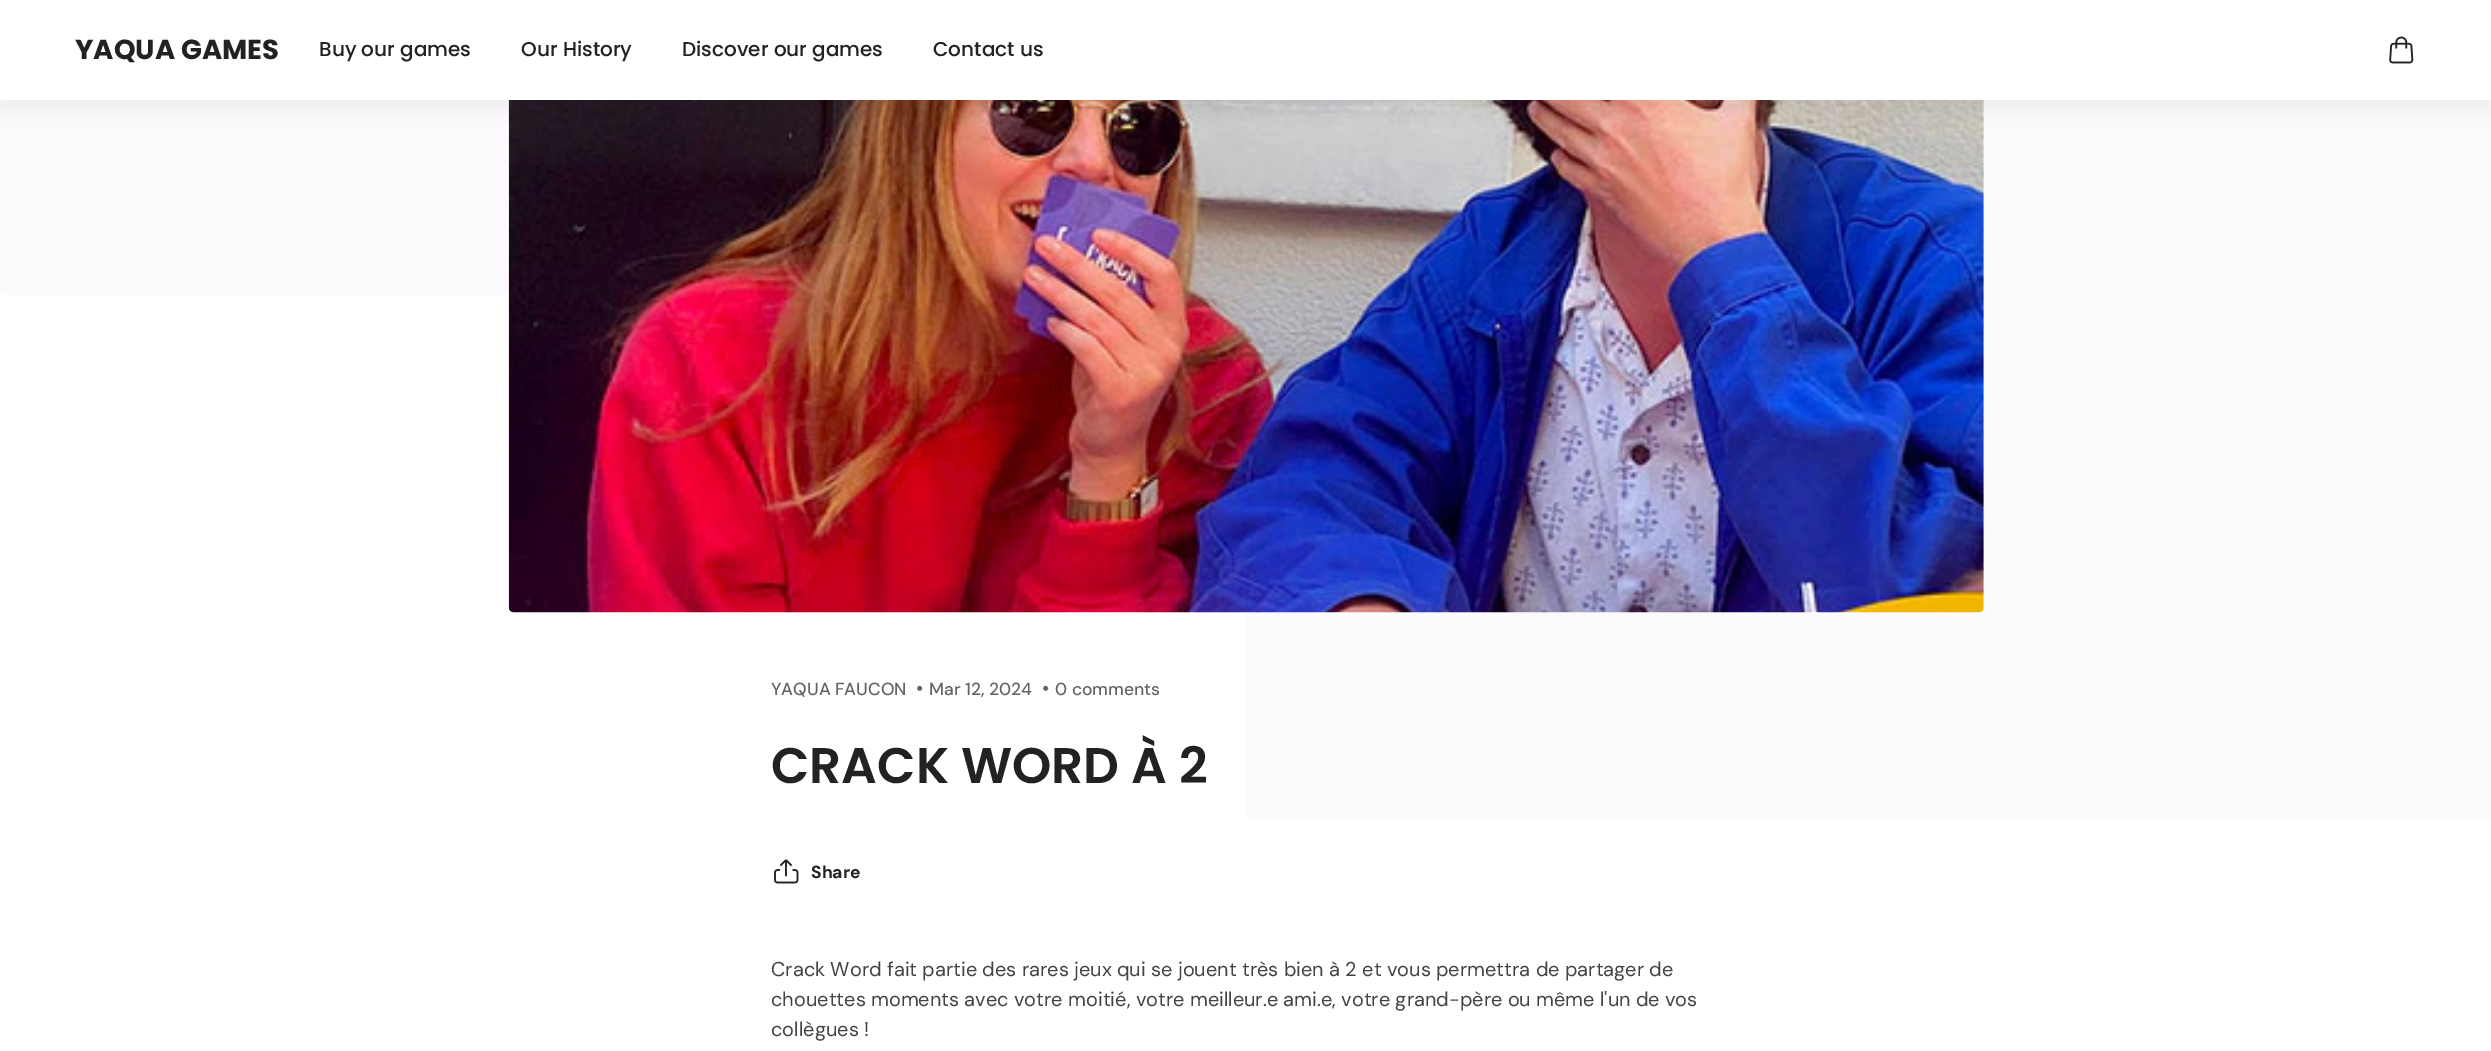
%!PS
<< /PageSize [2491 1051] /PageUsesTransparency true >> setpagedevice
/rgb { dup -16 bitshift 255 div exch dup -8 bitshift 255 and 255 div exch 255 and 255 div setrgbcolor } def
/font { [ exch dup neg 0 0 3 -1 roll 0 0 ] selectfont } def
/text { moveto show } def
/alpha { dup .setfillconstantalpha .setstrokeconstantalpha } def
/roundrect { 5 dict begin { /r /h /w /y /x } { exch def } forall
  x r add y moveto x w add y 2 copy h add r arct x w add y h add x 1 index r arct
  x y h add x y r arct x y 2 copy exch w add exch r arct closepath end } def
/shadow { 12 dict begin { /a /b /q /h /w /y /x } { exch def } forall gsave /was 0 def
  9 -2 -9 { dup b mul 4 div /e exch def 1 sub .425 mul 2.718 exch exp 1 add a .99 .min exch div /now exch def
    1 1 now sub 1 was sub div sub alpha /was now def
    w h .min e 2 mul add 0 gt { x e sub y e sub w e 2 mul add h e 2 mul add
      q e add b .6 mul add w h .min 2 div e add .min 0 .max roundrect fill } if } for grestore end } def
/picture { 5 dict begin { /h /w /y /x /name } { exch def } forall
  gsave x y translate w h scale
  w h 8 [w 0 0 h 0 0] name (r) file false 3 colorimage grestore end } def
0 .pushpdf14devicefilter
0 1051 translate 1 -1 scale
4 setmiterlimit
/s1 { /Poppins-Bold 27.5 font 16#222222 rgb } def
/s2 { /Poppins-Medium 20 font 16#222222 rgb } def
/s3 { /DMSans-Medium 17.5 font 16#646464 rgb } def
/s4 { /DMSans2-Medium 20 font 16#646464 rgb } def
/s5 { /Poppins-SemiBold 50 font 16#222222 rgb } def
/s6 { /DMSans-Bold 17.5 font 16#222222 rgb } def
/s7 { /DMSans-Regular 20 font 16#434343 rgb } def
16#FFFFFF rgb
0 0 2491 1051 rectfill
16#FCFAFD rgb
0 -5 2491 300 5 roundrect fill
1246 -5 1245 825 5 roundrect fill
(pic2.raw) 508 100 1476 513 picture
16#000000 rgb
0 10 2491 100 0 10 0.05 shadow
16#FFFFFF rgb
0 0 2491 100 rectfill
s1
(YAQUA GAMES) 75 59 text
s2
(Buy our games) 319 56 text
(Our History) 521 56 text
(Discover our games) 682 56 text
(Contact us) 933 56 text
(pic1.raw) 2389 36 25 28 picture
s3
(YAQUA FAUCON) 771 695 text
s4
(•) 916 695 text
s3
(Mar 12, 2024) 929 695 text
s4
(•) 1042 695 text
s3
(0 comments) 1055 695 text
s5
(CRACK WORD À 2) 771 783 text
(pic3.raw) 774 859 25 25 picture
s6
(Share) 811 878 text
s7
(Crack Word fait partie des rares jeux qui se jouent très bien à 2 et vous permettra de partager de) 771 976 text
(chouettes moments avec votre moitié, votre meilleur.e ami.e, votre grand-père ou même l'un de vos) 771 1006 text
(collègues !) 771 1036 text
.poppdf14devicefilter showpage
